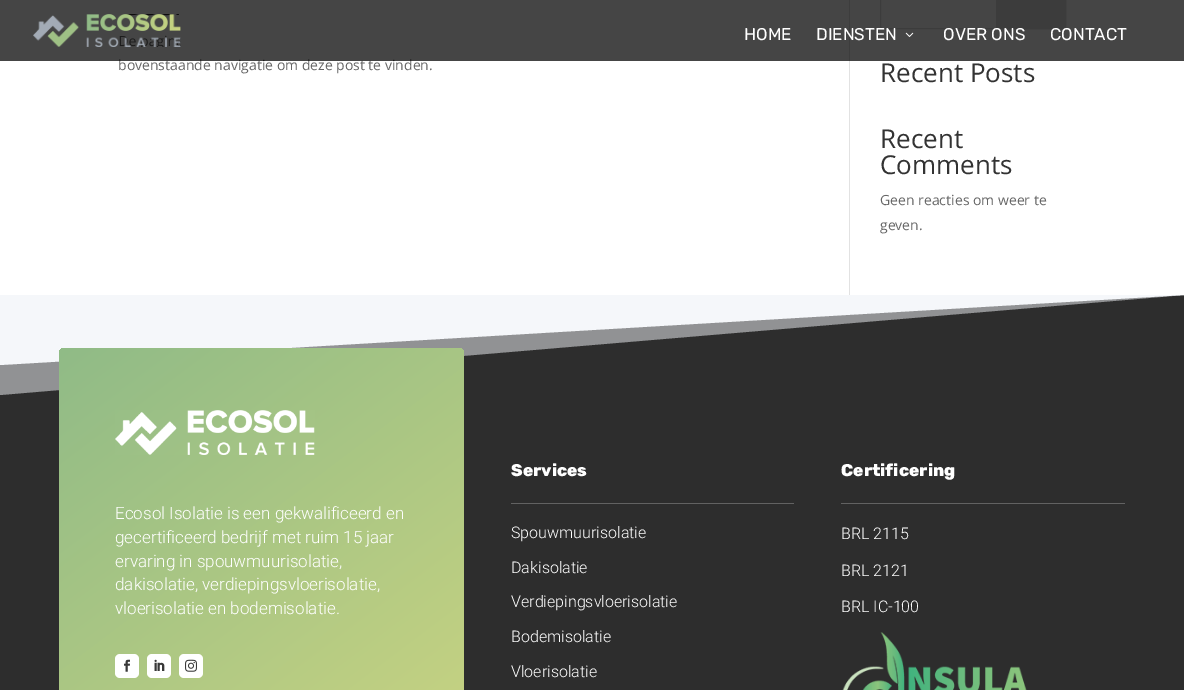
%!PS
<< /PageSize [1184 690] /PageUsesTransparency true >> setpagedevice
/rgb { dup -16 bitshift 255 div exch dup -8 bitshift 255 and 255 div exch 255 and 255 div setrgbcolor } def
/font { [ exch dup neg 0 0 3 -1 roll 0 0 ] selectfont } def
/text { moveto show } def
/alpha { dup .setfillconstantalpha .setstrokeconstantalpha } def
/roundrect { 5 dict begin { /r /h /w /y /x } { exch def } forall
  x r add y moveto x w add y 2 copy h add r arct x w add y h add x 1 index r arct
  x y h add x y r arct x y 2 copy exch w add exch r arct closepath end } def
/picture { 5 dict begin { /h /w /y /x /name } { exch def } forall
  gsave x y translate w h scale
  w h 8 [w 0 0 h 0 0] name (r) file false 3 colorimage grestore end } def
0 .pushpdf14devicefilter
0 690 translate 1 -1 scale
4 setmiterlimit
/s1 { /OpenSans-Regular 14 font 16#666666 rgb } def
/s2 { /Rubik-Regular 17 font 16#FFFFFF rgb } def
/s3 { /OpenSans-Regular 26 font 16#333333 rgb } def
/s4 { /Roboto-Light 17 font 16#FFFFFF rgb } def
/s5 { /Rubik-ExtraBold 17 font 16#FFFFFF rgb } def
/s6 { /Roboto-Light 16 font 16#FFFFFF rgb } def
16#FFFFFF rgb
0 0 1184 690 rectfill
16#E2E2E2 rgb
849 0 1 295 rectfill
s1
(bovenstaande navigatie om deze post te vinden.) 118 70 text
16#DDDDDD rgb
880.5 -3.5 185 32 2.5 roundrect stroke
996.5 -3.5 moveto 1063 -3.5 lineto 1064.5 -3.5 1065.5 -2.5 1065.5 -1 curveto 1065.5 26 lineto 1065.5 27.5 1064.5 28.5 1063 28.5 curveto 996.5 28.5 lineto closepath gsave fill grestore
stroke
0.73 alpha
16#000000 rgb
0 0 1184 61 rectfill
1 alpha
(pic1.raw) 33 14 148 33 picture
s2
(HOME) 744 40 text
(DIENSTEN) 816 40 text
(pic2.raw) 905 32 9 5 picture
(OVER ONS) 943 40 text
(CONTACT) 1050 40 text
s3
(Recent Posts) 880 82 text
(Recent) 880 148 text
(Comments) 880 174 text
s1
(Geen reacties om weer te) 880 205 text
(geven.) 880 230 text
16#2D2D2D rgb
0 295 1184 395 rectfill
16#919294 rgb
0 395 moveto 0 295 lineto 1184 295 lineto closepath fill
16#F5F7FA rgb
0 365 moveto 0 295 lineto 1184 295 lineto closepath fill
gsave 59 348 405 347 5 roundrect clip newpath
<< /ShadingType 2 /ColorSpace /DeviceRGB /Coords [83 330 440 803] /Extend [true true] /Function << /FunctionType 2 /Domain [0 1] /C0 [0.565 0.733 0.529] /C1 [0.792 0.831 0.506] /N 1 >> >> shfill grestore
(pic3.raw) 115 410 200 45 picture
s4
(Ecosol Isolatie is een gekwalificeerd en) 115 519 text
(gecertificeerd bedrijf met ruim 15 jaar) 115 543 text
(ervaring in spouwmuurisolatie,) 115 567 text
(dakisolatie, verdiepingsvloerisolatie,) 115 590 text
(vloerisolatie en bodemisolatie.) 115 614 text
115 654 24 24 5 roundrect fill
(pic4.raw) 124 659 6 13 picture
147 654 24 24 5 roundrect fill
(pic5.raw) 154 659 11 12 picture
179 654 24 24 5 roundrect fill
(pic6.raw) 185 659 12 13 picture
s5
(Services) 511 476 text
16#626262 rgb
511 503 283 1 rectfill
s6
(Spouwmuurisolatie) 511 538 text
(Dakisolatie) 511 573 text
(Verdiepingsvloerisolatie) 511 607 text
(Bodemisolatie) 511 642 text
(Vloerisolatie) 511 677 text
s5
(Certificering) 841 476 text
16#626262 rgb
841 503 284 1 rectfill
s6
(BRL 2115) 841 539 text
(BRL 2121) 841 576 text
(BRL IC-100) 841 612 text
(pic7.raw) 842 632 185 58 picture
.poppdf14devicefilter showpage
